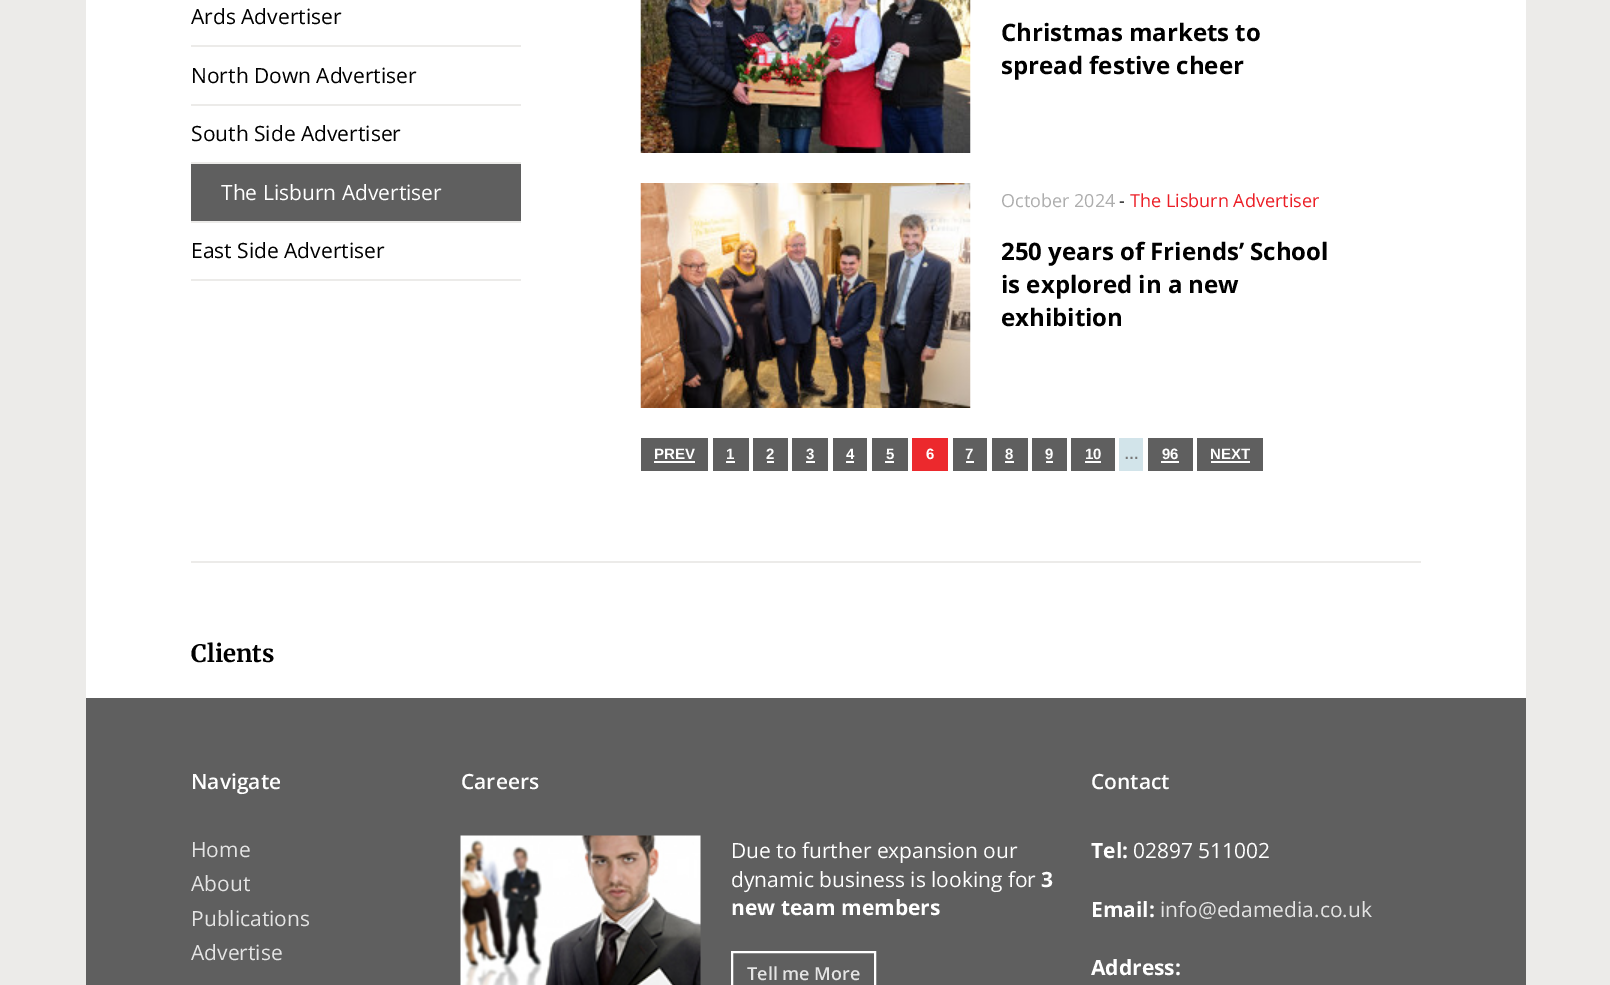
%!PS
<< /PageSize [1610 985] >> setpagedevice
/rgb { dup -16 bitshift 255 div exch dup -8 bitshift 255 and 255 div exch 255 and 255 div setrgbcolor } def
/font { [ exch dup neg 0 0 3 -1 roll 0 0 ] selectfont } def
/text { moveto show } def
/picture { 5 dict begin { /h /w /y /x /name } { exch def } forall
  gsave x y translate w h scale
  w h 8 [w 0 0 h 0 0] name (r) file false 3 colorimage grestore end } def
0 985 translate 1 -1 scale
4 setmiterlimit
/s1 { /OpenSans-Regular 21 font 16#000000 rgb } def
/s2 { /OpenSans-Regular 21 font 16#FFFFFF rgb } def
/s3 { /OpenSans-Bold 24 font 16#000000 rgb } def
/s4 { /OpenSans-Regular 18 font 16#ADADAD rgb } def
/s5 { /OpenSans-Regular 18 font 16#000000 rgb } def
/s6 { /OpenSans-Regular 18 font 16#EC1E26 rgb } def
/s7 { /LiberationSans-Bold 15 font 16#FFFFFF rgb } def
/s8 { /LiberationSans-Bold 15 font 16#777777 rgb } def
/s9 { /Merriweather-Bold 24 font 16#000000 rgb } def
/s10 { /OpenSans-SemiBold 21 font 16#FFFFFF rgb } def
/s11 { /OpenSans-Regular 21 font 16#E4E4E4 rgb } def
/s12 { /OpenSans-Bold 21 font 16#FFFFFF rgb } def
/s13 { /OpenSans-SemiBold 18 font 16#E4E4E4 rgb } def
16#ECEBE9 rgb
0 0 1610 985 rectfill
16#FFFFFF rgb
86 0 1440 698 rectfill
16#ECEBE9 rgb
191 45 330 2 rectfill
s1
(Ards Advertiser) 191 24 text
16#ECEBE9 rgb
191 104 330 2 rectfill
s1
(North Down Advertiser) 191 83 text
16#ECEBE9 rgb
191 162 330 2 rectfill
s1
(South Side Advertiser) 191 141 text
16#5F5F5F rgb
191 164 330 57 rectfill
16#ECEBE9 rgb
191 221 330 2 rectfill
s2
(The Lisburn Advertiser) 221 200 text
16#ECEBE9 rgb
191 279 330 2 rectfill
s1
(East Side Advertiser) 191 258 text
(pic1.raw) 640 0 331 153 picture
s3
(Christmas markets to) 1001 41 text
(spread festive cheer) 1001 74 text
(pic2.raw) 640 183 331 225 picture
s4
(October 2024) 1001 207 text
s5
(-) 1119 207 text
s6
(The Lisburn Advertiser) 1130 207 text
s3
(250 years of Friends’ School) 1001 260 text
(is explored in a new) 1001 293 text
(exhibition) 1001 326 text
16#5F5F5F rgb
641 438 67 33 rectfill
s7
(PREV) 654 459 text
654 461 41 2 rectfill
16#5F5F5F rgb
713 438 36 33 rectfill
s7
(1) 726 459 text
726 461 9 2 rectfill
16#5F5F5F rgb
753 438 35 33 rectfill
s7
(2) 766 459 text
767 461 7 2 rectfill
16#5F5F5F rgb
792 438 36 33 rectfill
s7
(3) 806 459 text
806 461 9 2 rectfill
16#5F5F5F rgb
833 438 34 33 rectfill
s7
(4) 846 459 text
846 461 8 2 rectfill
16#5F5F5F rgb
872 438 36 33 rectfill
s7
(5) 886 459 text
885 461 9 2 rectfill
16#EC292D rgb
912 438 36 33 rectfill
s7
(6) 926 459 text
16#5F5F5F rgb
953 438 34 33 rectfill
s7
(7) 965 459 text
966 461 8 2 rectfill
16#5F5F5F rgb
992 438 36 33 rectfill
s7
(8) 1005 459 text
1005 461 9 2 rectfill
16#5F5F5F rgb
1032 438 35 33 rectfill
s7
(9) 1045 459 text
1046 461 7 2 rectfill
16#5F5F5F rgb
1071 438 44 33 rectfill
s7
(10) 1085 459 text
1085 461 16 2 rectfill
16#D2E4EA rgb
1119 438 24 33 rectfill
s8
(…) 1124 459 text
16#5F5F5F rgb
1148 438 45 33 rectfill
s7
(96) 1162 459 text
1161 461 18 2 rectfill
16#5F5F5F rgb
1197 438 66 33 rectfill
s7
(NEXT) 1210 459 text
1211 461 39 2 rectfill
16#ECEBE9 rgb
191 561 1230 2 rectfill
s9
(Clients) 191 662 text
16#5F5F5F rgb
86 698 1440 287 rectfill
s10
(Navigate) 191 789 text
s11
(Home) 191 857 text
(About) 191 891 text
(Publications) 191 926 text
(Advertise) 191 960 text
s10
(Careers) 461 789 text
(pic3.raw) 460 835 241 150 picture
s2
(Due to further expansion our) 731 858 text
(dynamic business is looking for) 731 887 text
s12
(3) 1041 887 text
(new team members) 731 915 text
2 setlinewidth
732 952 143 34 rectstroke
s13
(Tell me More) 747 980 text
s10
(Contact) 1091 789 text
s12
(Tel:) 1091 858 text
s2
(02897 511002) 1133 858 text
s12
(Email:) 1091 917 text
s11
(info@edamedia.co.uk) 1160 917 text
s12
(Address:) 1091 975 text
showpage
